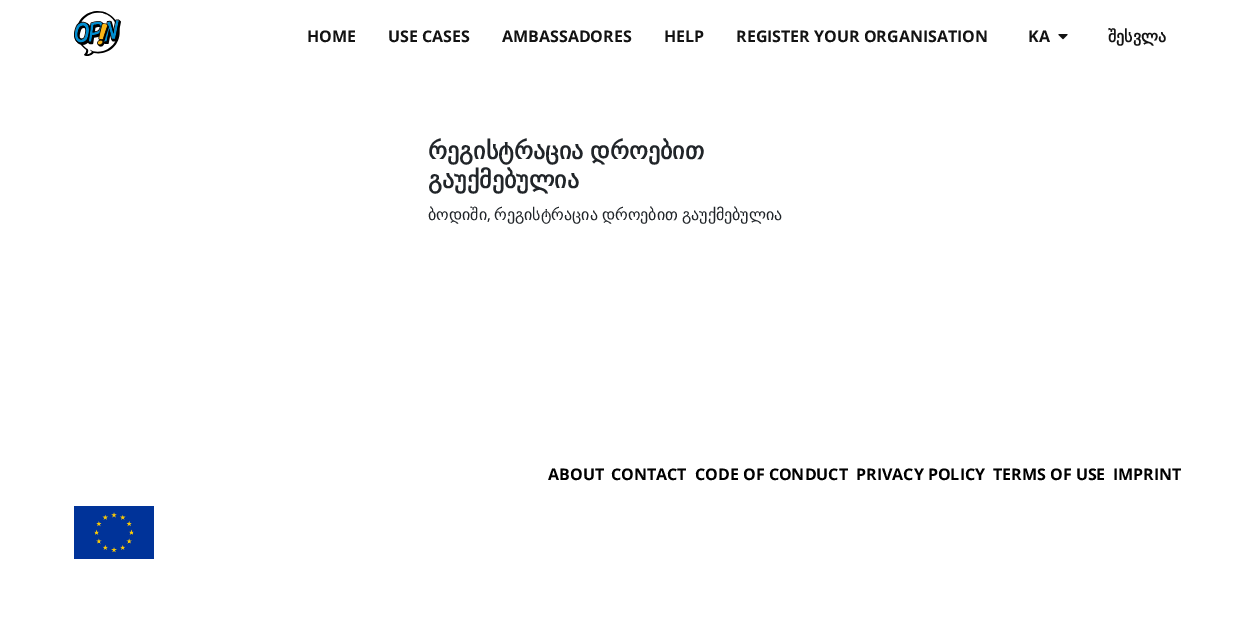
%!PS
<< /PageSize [1256 625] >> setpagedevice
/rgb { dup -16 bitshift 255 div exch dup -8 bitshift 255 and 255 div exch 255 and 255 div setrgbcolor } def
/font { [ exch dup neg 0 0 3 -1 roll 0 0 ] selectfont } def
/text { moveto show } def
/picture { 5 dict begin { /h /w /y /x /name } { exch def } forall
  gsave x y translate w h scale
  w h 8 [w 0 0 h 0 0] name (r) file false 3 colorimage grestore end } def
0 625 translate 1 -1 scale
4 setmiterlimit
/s1 { /OpenSans-Bold 16 font 16#131313 rgb } def
/s2 { /DejaVuSans-Bold 16 font 16#131313 rgb } def
/s3 { /DejaVuSans-Bold 24 font 16#212529 rgb } def
/s4 { /DejaVuSans-Regular 16 font 16#212529 rgb } def
/s5 { /OpenSans-Regular 16 font 16#212529 rgb } def
/s6 { /OpenSans-Bold 16 font 16#000000 rgb } def
16#FFFFFF rgb
0 0 1256 625 rectfill
(pic1.raw) 74 11 47 45 picture
s1
(HOME) 307 42 text
(USE CASES) 388 42 text
(AMBASSADORES) 502 42 text
(HELP) 664 42 text
(REGISTER YOUR ORGANISATION) 736 42 text
(KA) 1028 42 text
(pic2.raw) 1058 34 10 6 picture
s2
(შესვლა) 1108 42 text
/DejaVuSans-Bold 24 font
16#212529 rgb
428 159 moveto -1 0 32 (რეგისტრაცია დროებით) widthshow
(გაუქმებულია) 428 188 text
s4
(ბოდიში) 428 220 text
s5
(,) 487 220 text
/DejaVuSans-Regular 16 font
494 220 moveto -1 0 32 (რეგისტრაცია დროებით გაუქმებულია) widthshow
s6
(ABOUT) 548 480 text
(CONTACT) 611 480 text
(CODE OF CONDUCT) 695 480 text
(PRIVACY POLICY) 856 480 text
(TERMS OF USE) 993 480 text
(IMPRINT) 1113 480 text
(pic3.raw) 74 506 80 53 picture
showpage
